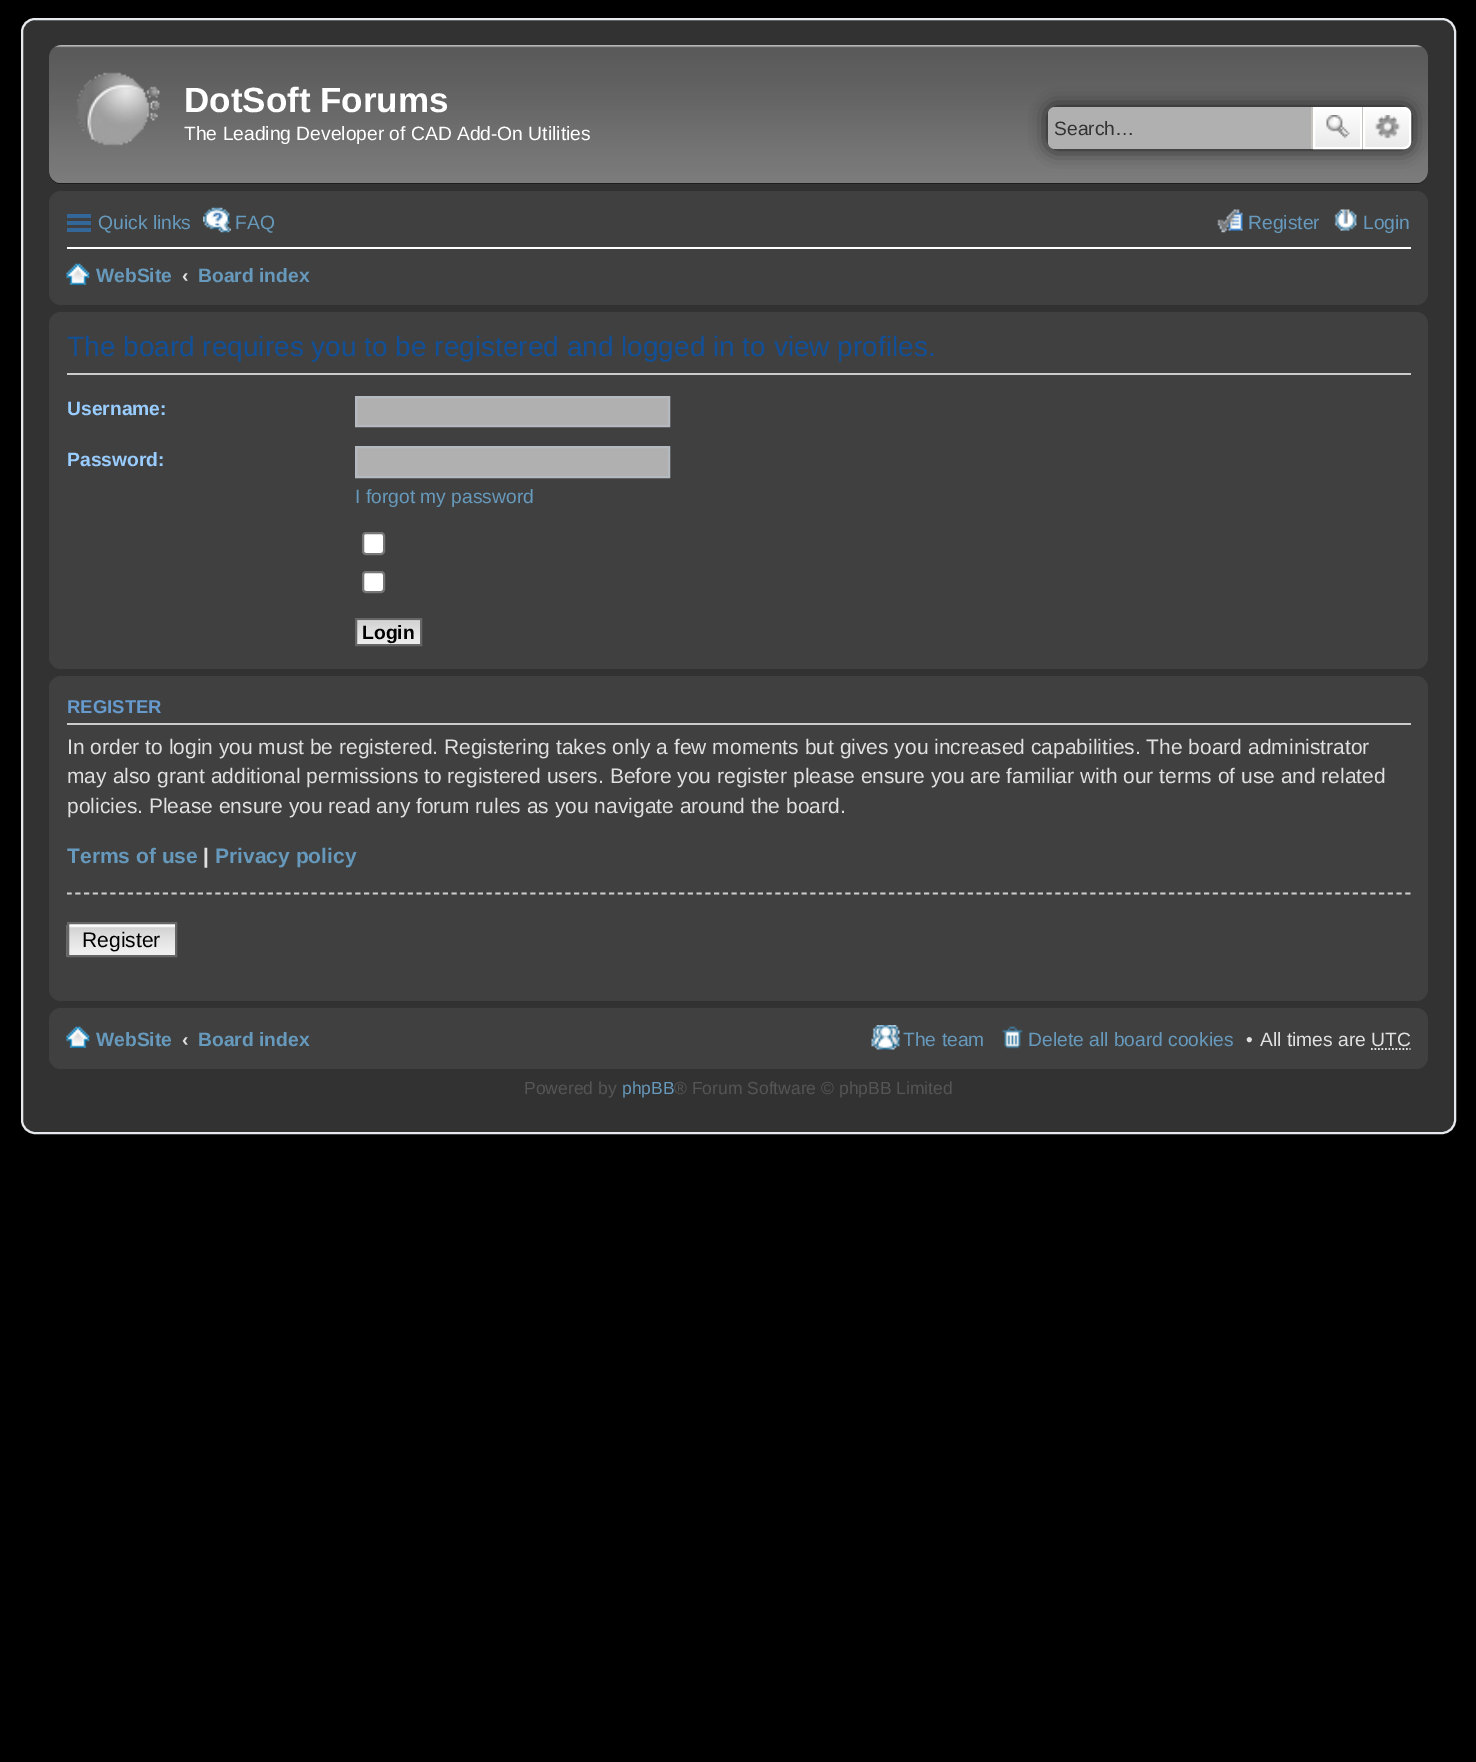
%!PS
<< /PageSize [1476 1762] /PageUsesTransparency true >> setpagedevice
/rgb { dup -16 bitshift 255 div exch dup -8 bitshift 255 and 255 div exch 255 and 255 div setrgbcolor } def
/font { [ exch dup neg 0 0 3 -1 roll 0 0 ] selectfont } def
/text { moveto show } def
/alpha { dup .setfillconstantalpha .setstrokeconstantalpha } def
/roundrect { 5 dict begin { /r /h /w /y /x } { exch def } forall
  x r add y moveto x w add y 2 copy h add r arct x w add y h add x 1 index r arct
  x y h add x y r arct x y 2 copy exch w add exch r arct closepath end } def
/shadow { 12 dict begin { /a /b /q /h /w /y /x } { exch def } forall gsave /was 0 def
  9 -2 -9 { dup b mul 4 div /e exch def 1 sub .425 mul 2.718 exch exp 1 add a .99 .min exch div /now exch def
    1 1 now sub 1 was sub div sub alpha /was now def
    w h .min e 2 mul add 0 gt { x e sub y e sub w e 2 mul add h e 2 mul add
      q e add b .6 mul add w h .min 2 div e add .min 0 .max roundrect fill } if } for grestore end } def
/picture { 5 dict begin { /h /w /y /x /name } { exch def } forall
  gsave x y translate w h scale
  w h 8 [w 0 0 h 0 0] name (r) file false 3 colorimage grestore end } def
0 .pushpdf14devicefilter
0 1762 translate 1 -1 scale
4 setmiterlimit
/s1 { /LiberationSans-Bold 35 font 16#FFFFFF rgb } def
/s2 { /LiberationSans-Regular 19.25 font 16#FFFFFF rgb } def
/s3 { /LiberationSans-Regular 19.25 font 16#333333 rgb } def
/s4 { /LiberationSans-Regular 19.25 font 16#6699BB rgb } def
/s5 { /LiberationSans-Bold 19.25 font 16#6699BB rgb } def
/s6 { /LiberationSans-Bold 19.25 font 16#E0E0E0 rgb } def
/s7 { /LiberationSans-Regular 28 font 16#115098 rgb } def
/s8 { /LiberationSans-Bold 19.25 font 16#99CCFF rgb } def
/s9 { /LiberationSans-Bold 19.25 font 16#000000 rgb } def
/s10 { /LiberationSans-Bold 18.5 font 16#6699CC rgb } def
/s11 { /LiberationSans-Regular 21 font 16#E0E0E0 rgb } def
/s12 { /LiberationSans-Bold 21 font 16#6699BB rgb } def
/s13 { /LiberationSans-Bold 21 font 16#E0E0E0 rgb } def
/s14 { /LiberationSans-Regular 21 font 16#000000 rgb } def
/s15 { /LiberationSans-Regular 19.25 font 16#E0E0E0 rgb } def
/s16 { /LiberationSans-Regular 17.5 font 16#555555 rgb } def
/s17 { /LiberationSans-Regular 17.5 font 16#6699BB rgb } def
16#000000 rgb
0 0 1476 1762 rectfill
16#323232 rgb
22 19 1433 1114 13 roundrect gsave fill grestore
16#E6E9ED rgb
2 setlinewidth
stroke
16#161616 rgb
49 46 1379 138 12 roundrect fill
(pic1.raw) 49 45 1379 139 picture
(pic2.raw) 76 72 84 74 picture
s1
(DotSoft Forums) 184 112 text
s2
(The Leading Developer of CAD Add-On Utilities) 184 140 text
16#161616 rgb
1048 107 363 42 7 9 1 shadow
16#B0B0B0 rgb
1055 107 moveto 1311 107 lineto 1311 149 lineto 1055 149 lineto 1051 149 1048 146 1048 142 curveto 1048 114 lineto 1048 110 1051 107 1055 107 curveto closepath fill
s3
(Search…) 1054 135 text
gsave 1315 109 moveto 1360 109 lineto 1360 147 lineto 1315 147 lineto closepath clip newpath
<< /ShadingType 2 /ColorSpace /DeviceRGB /Coords [1337 107 1337 149] /Extend [true true] /Function << /FunctionType 2 /Domain [0 1] /C0 [1 1 1] /C1 [0.914 0.914 0.914] /N 1 >> >> shfill grestore
16#FFFFFF rgb
1314 108 47 40 rectstroke
16#C7C3BF rgb
1362 107 1 42 rectfill
1311 107 2 42 rectfill
(pic3.raw) 1326 115 24 24 picture
gsave 1364 108 moveto 1404 108 lineto 1407.5 108 1410 110.5 1410 114 curveto 1410 142 lineto 1410 145.5 1407.5 148 1404 148 curveto 1364 148 lineto closepath clip newpath
<< /ShadingType 2 /ColorSpace /DeviceRGB /Coords [1387 107 1387 149] /Extend [true true] /Function << /FunctionType 2 /Domain [0 1] /C0 [1 1 1] /C1 [0.914 0.914 0.914] /N 1 >> >> shfill grestore
16#FFFFFF rgb
1364 108 moveto 1404 108 lineto 1407.5 108 1410 110.5 1410 114 curveto 1410 142 lineto 1410 145.5 1407.5 148 1404 148 curveto 1364 148 lineto closepath stroke
(pic4.raw) 1375 115 26 24 picture
16#404040 rgb
49 191 1379 114 12 roundrect fill
16#336699 rgb
67 214 24 4 rectfill
67 221 24 4 rectfill
67 228 24 4 rectfill
s4
(Quick links) 98 229 text
(pic5.raw) 203 207 28 26 picture
(FAQ) 235 229 text
(pic6.raw) 1217 209 26 24 picture
(Register) 1248 229 text
(pic7.raw) 1334 209 23 22 picture
(Login) 1363 229 text
16#FFFFFF rgb
67 247 1344 2 rectfill
(pic8.raw) 66 263 24 22 picture
s5
(WebSite) 96 282 text
s6
(‹) 182 282 text
s5
(Board index) 198 282 text
16#404040 rgb
49 312 1379 357 12 roundrect fill
16#CCCCCC rgb
67 373 1344 2 rectfill
s7
(The board requires you to be registered and logged in to view profiles.) 67 356 text
s8
(Username:) 67 415 text
16#B0B0B0 rgb
356 397 moveto 669 397 lineto 669 426 lineto 356 426 lineto closepath gsave fill grestore
16#B4BAC0 rgb
stroke
s8
(Password:) 67 466 text
16#B0B0B0 rgb
356 447 moveto 669 447 lineto 669 477 lineto 356 477 lineto closepath gsave fill grestore
16#B4BAC0 rgb
stroke
s4
(I forgot my password) 355 503 text
16#FFFFFF rgb
363 533 21 21 3 roundrect gsave fill grestore
16#767676 rgb
stroke
16#FFFFFF rgb
363 572 21 20 3 roundrect gsave fill grestore
16#767676 rgb
stroke
(pic9.raw) 357 620 63 24 picture
16#666666 rgb
356 619 65 26 rectstroke
s9
(Login) 362 639 text
16#404040 rgb
49 676 1379 325 12 roundrect fill
16#CCCCCC rgb
67 723 1344 2 rectfill
s10
(REGISTER) 67 713 text
s11
(In order to login you must be registered. Registering takes only a few moments but gives you increased capabilities. The board administrator) 67 754 text
(may also grant additional permissions to registered users. Before you register please ensure you are familiar with our terms of use and related) 67 783 text
(policies. Please ensure you read any forum rules as you navigate around the board.) 67 813 text
gsave
67 684 1344 308 rectclip
s12
(Terms of use) 67 863 text
grestore
s13
(|) 203 863 text
s12
(Privacy policy) 215 863 text
gsave
67 684 1344 308 rectclip
16#CCCCCC rgb
1.8 setlinewidth
[5.25 3.5] 0 setdash
66.5 893.5 moveto 1410.5 893.5 lineto stroke
grestore
16#FAFAFA rgb
69 924 106 2 rectfill
(pic10.raw) 66 925 109 32 picture
16#666666 rgb
68 923 108 33 rectstroke
s14
(Register) 82 947 text
16#404040 rgb
49 1008 1379 61 12 roundrect fill
(pic8.raw) 66 1026 24 22 picture
s5
(WebSite) 96 1046 text
s6
(‹) 182 1046 text
s5
(Board index) 198 1046 text
(pic11.raw) 871 1025 29 25 picture
s4
(The team) 903 1046 text
(pic12.raw) 1002 1026 21 23 picture
(Delete all board cookies) 1028 1046 text
s15
(•) 1246 1046 text
(All times are UTC) 1260 1046 text
1.8 setlinewidth
[1.75 1.75] 0 setdash
1371 1049 moveto 1410.5 1049 lineto stroke
s16
(Powered by) 524 1094 text
s17
(phpBB) 622 1094 text
s16
(® Forum Software © phpBB Limited) 674 1094 text
.poppdf14devicefilter showpage
